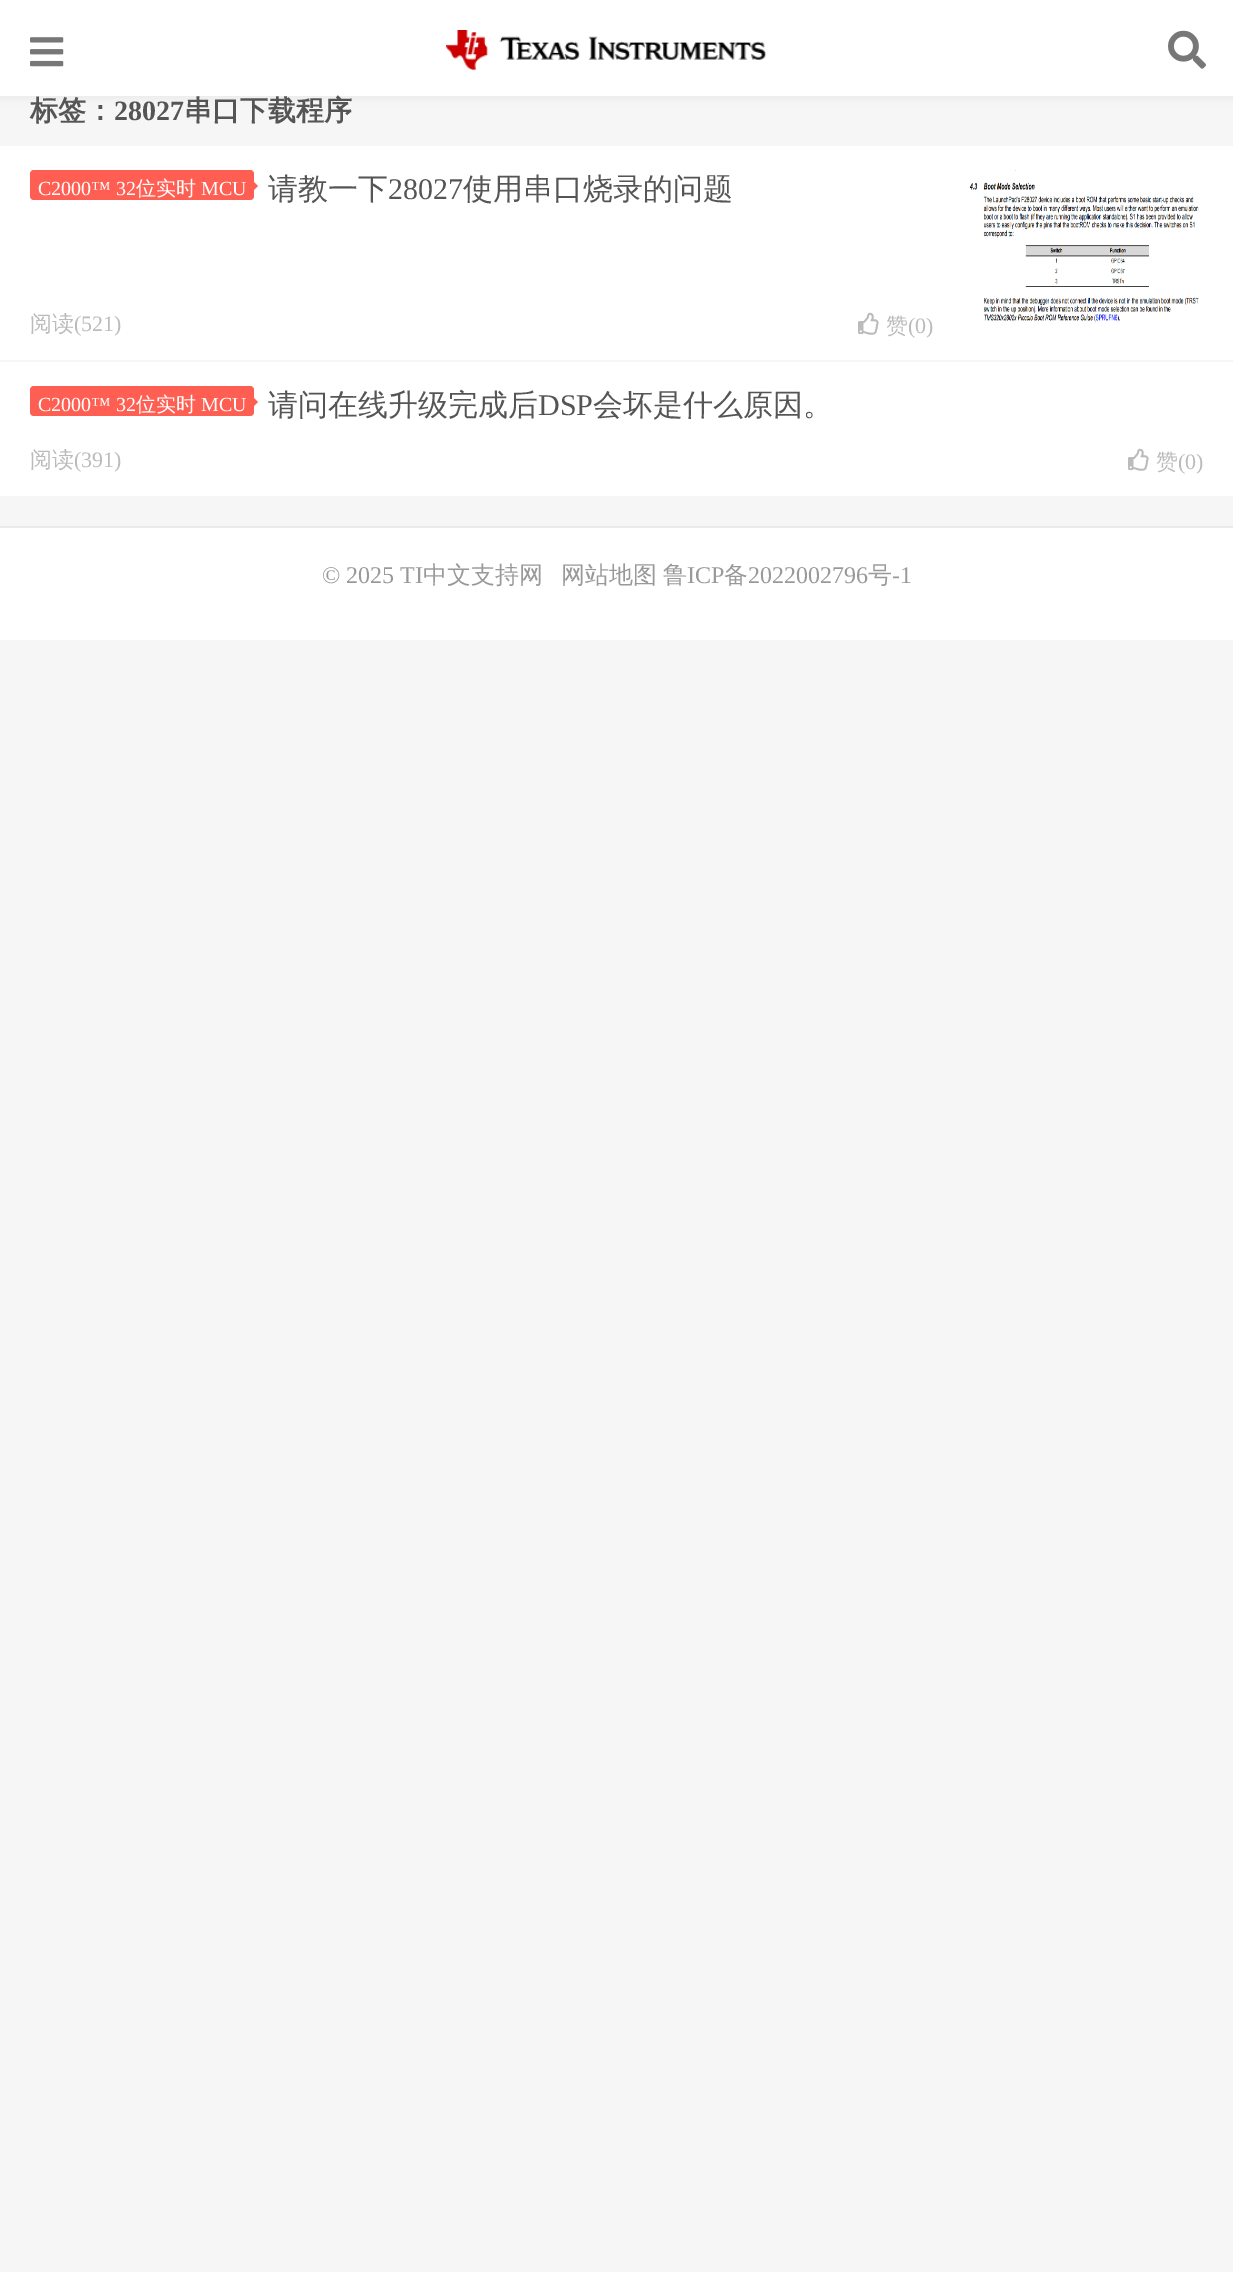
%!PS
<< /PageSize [1233 2272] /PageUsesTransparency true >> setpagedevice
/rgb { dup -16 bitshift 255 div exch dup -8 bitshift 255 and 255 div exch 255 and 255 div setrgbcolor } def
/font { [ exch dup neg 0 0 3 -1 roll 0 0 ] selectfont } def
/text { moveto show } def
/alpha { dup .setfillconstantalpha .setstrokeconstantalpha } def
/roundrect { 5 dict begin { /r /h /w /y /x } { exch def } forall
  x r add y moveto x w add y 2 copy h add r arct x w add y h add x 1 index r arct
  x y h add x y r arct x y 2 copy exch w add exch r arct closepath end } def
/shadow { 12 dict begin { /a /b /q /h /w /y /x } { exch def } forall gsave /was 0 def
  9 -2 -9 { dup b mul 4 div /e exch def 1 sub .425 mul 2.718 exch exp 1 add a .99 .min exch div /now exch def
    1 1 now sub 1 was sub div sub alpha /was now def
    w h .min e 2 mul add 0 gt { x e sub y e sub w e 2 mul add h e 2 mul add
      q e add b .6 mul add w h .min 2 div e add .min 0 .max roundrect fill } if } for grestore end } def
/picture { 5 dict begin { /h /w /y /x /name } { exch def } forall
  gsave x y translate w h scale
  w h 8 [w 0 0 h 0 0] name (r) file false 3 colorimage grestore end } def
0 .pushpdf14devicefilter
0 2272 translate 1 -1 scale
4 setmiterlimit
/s1 { /WenQuanYiZenHei-Bold 28 font 16#555555 rgb } def
/s2 { /LiberationSerif-Bold 28 font 16#555555 rgb } def
/s3 { /LiberationSerif-Regular 20 font 16#FFFFFF rgb } def
/s4 { /WenQuanYiZenHei-Medium 20 font 16#FFFFFF rgb } def
/s5 { /WenQuanYiZenHei-Medium 30 font 16#555555 rgb } def
/s6 { /LiberationSerif-Regular 30 font 16#555555 rgb } def
/s7 { /WenQuanYiZenHei-Medium 22 font 16#BBBBBB rgb } def
/s8 { /LiberationSerif-Regular 22 font 16#BBBBBB rgb } def
/s9 { /LiberationSerif-Regular 24 font 16#999999 rgb } def
/s10 { /WenQuanYiZenHei-Medium 24 font 16#999999 rgb } def
16#F6F6F6 rgb
0 0 1233 2272 rectfill
16#000000 rgb
0 2 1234 96 0 5 0.05 shadow
16#FFFFFF rgb
0 0 1233 96 rectfill
(pic1.raw) 30 37 34 30 picture
(pic2.raw) 446 30 321 40 picture
(pic3.raw) 1168 30 38 39 picture
s1
(标签：) 30 120 text
s2
(28027) 114 120 text
s1
(串口下载程序) 184 120 text
16#FFFFFF rgb
0 146 1233 214 rectfill
16#FF5E52 rgb
30 170 224 30 4 roundrect fill
s3
(C2000™ 32) 38 195 text
s4
(位实时) 136 195 text
s3
(MCU) 201 195 text
16#FF5E52 rgb
250 194 moveto 250 178 lineto 258 186 lineto closepath fill
s5
(请教一下) 268 199 text
s6
(28027) 388 199 text
s5
(使用串口烧录的问题) 463 199 text
(pic4.raw) 970 170 229 153 picture
s7
(阅读) 30 331 text
s8
(\(521\)) 74 331 text
(pic5.raw) 858 312 21 23 picture
s7
(赞) 886 333 text
s8
(\(0\)) 908 333 text
16#FFFFFF rgb
0 362 1233 134 rectfill
16#FF5E52 rgb
30 386 224 30 4 roundrect fill
s3
(C2000™ 32) 38 411 text
s4
(位实时) 136 411 text
s3
(MCU) 201 411 text
16#FF5E52 rgb
250 410 moveto 250 394 lineto 258 402 lineto closepath fill
s5
(请问在线升级完成后) 268 415 text
s6
(DSP) 538 415 text
s5
(会坏是什么原因。) 593 415 text
s7
(阅读) 30 467 text
s8
(\(391\)) 74 467 text
(pic5.raw) 1128 448 21 23 picture
s7
(赞) 1156 469 text
s8
(\(0\)) 1178 469 text
16#FFFFFF rgb
0 528 1233 112 rectfill
16#EAEAEA rgb
0 526 1233 2 rectfill
s9
(© 2025 TI) 322 583 text
s10
(中文支持网) 423 583 text
(网站地图) 561 583 text
(鲁) 663 583 text
s9
(ICP) 687 583 text
s10
(备) 724 583 text
s9
(2022002796) 748 583 text
s10
(号) 868 583 text
s9
(-1) 892 583 text
.poppdf14devicefilter showpage
